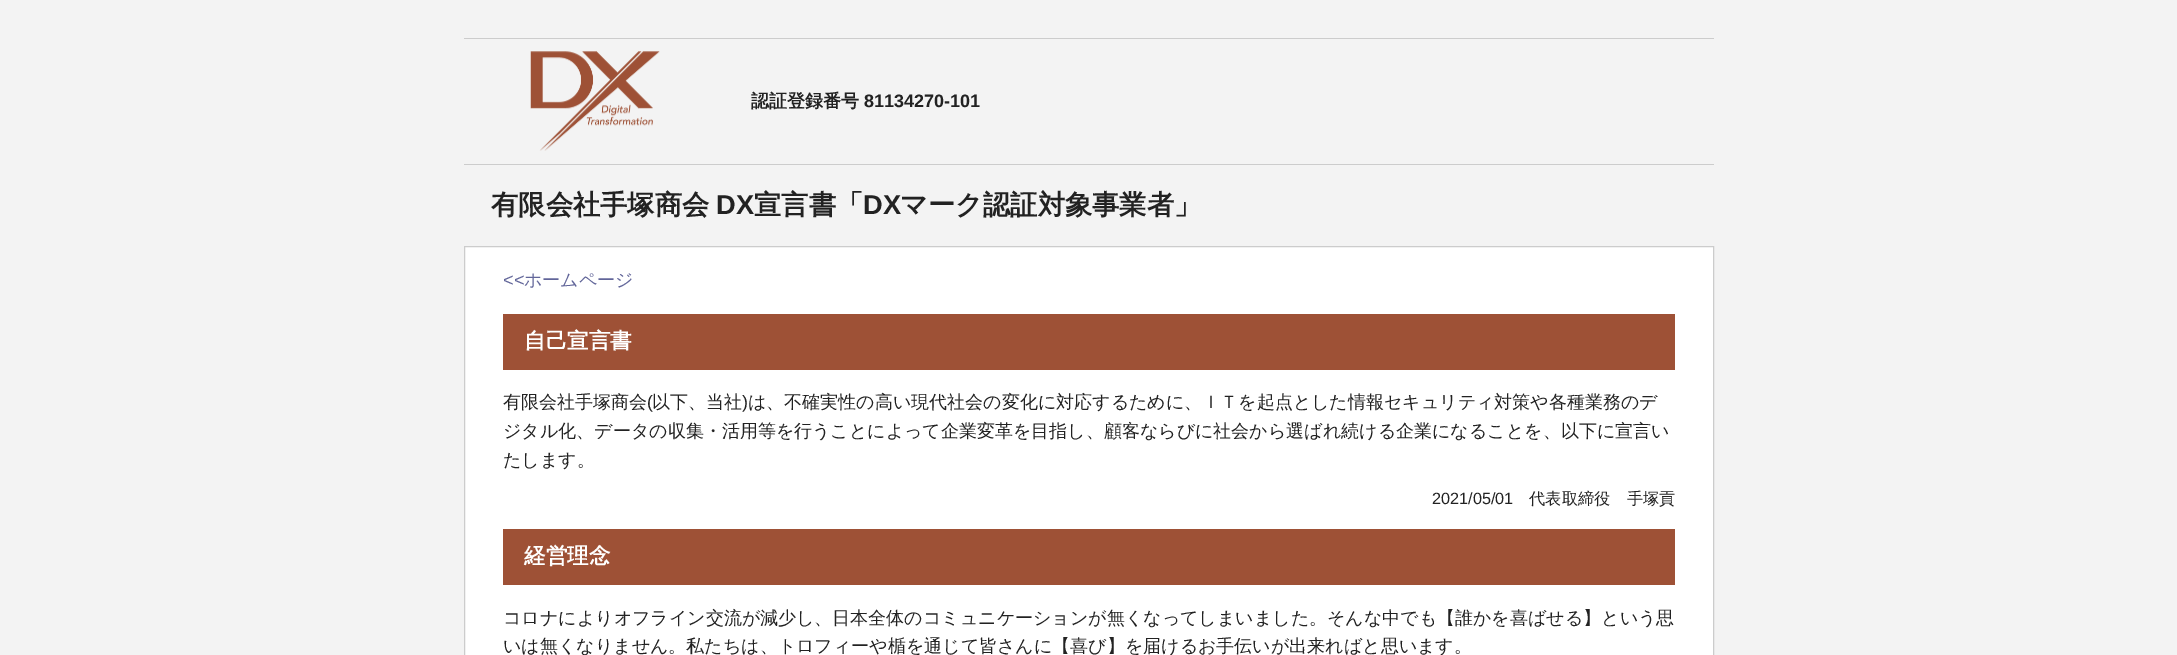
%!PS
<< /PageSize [2177 655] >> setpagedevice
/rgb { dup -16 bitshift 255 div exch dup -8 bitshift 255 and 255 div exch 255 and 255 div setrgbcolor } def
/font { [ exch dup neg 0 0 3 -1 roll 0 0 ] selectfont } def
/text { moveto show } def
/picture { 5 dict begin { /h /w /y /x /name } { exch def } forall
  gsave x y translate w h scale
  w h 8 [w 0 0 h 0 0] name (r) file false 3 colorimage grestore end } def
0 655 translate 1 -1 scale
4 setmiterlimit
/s1 { /WenQuanYiZenHei-Bold 18 font 16#222222 rgb } def
/s2 { /LiberationSans-Bold 18 font 16#222222 rgb } def
/s3 { /WenQuanYiZenHei-Bold 27.25 font 16#222222 rgb } def
/s4 { /LiberationSans-Bold 27.25 font 16#222222 rgb } def
/s5 { /LiberationSans-Regular 18 font 16#616599 rgb } def
/s6 { /WenQuanYiZenHei-Medium 18 font 16#616599 rgb } def
/s7 { /WenQuanYiZenHei-Bold 21.5 font 16#FFFFFF rgb } def
/s8 { /WenQuanYiZenHei-Medium 18 font 16#222222 rgb } def
/s9 { /LiberationSans-Regular 18 font 16#222222 rgb } def
/s10 { /LiberationSans-Regular 16.25 font 16#222222 rgb } def
/s11 { /WenQuanYiZenHei-Medium 16.25 font 16#222222 rgb } def
16#F3F3F3 rgb
0 0 2177 655 rectfill
16#CCCCCC rgb
464 38 1250 1 rectfill
464 164 1250 1 rectfill
(pic1.raw) 530 51 130 100 picture
s1
(認証登録番号) 751 107 text
s2
(81134270-101) 864 107 text
s3
(有限会社手塚商会) 491 214 text
s4
(DX) 716 214 text
s3
(宣言書「) 754 214 text
s4
(DX) 863 214 text
s3
(マーク認証対象事業者」) 900 214 text
16#FFFFFF rgb
464.5 246.5 moveto 1713.5 246.5 lineto 1713.5 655.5 lineto 464.5 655.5 lineto closepath gsave fill grestore
16#CCCCCC rgb
stroke
s5
(<<) 503 286 text
s6
(ホームページ) 524 286 text
16#9E5136 rgb
503 314 1172 56 rectfill
s7
(自己宣言書) 524 348 text
s8
(有限会社手塚商会) 503 408 text
s9
(\() 647 408 text
s8
(以下、当社) 652 408 text
s9
(\)) 742 408 text
s8
(は、不確実性の高い現代社会の変化に対応するために、ＩＴを起点とした情報セキュリティ対策や各種業務のデ) 748 408 text
(ジタル化、データの収集・活用等を行うことによって企業変革を目指し、顧客ならびに社会から選ばれ続ける企業になることを、以下に宣言い) 503 437 text
(たします。) 503 466 text
s10
(2021/05/01) 1432 504 text
s11
(代表取締役　手塚貢) 1529 504 text
16#9E5136 rgb
503 529 1172 56 rectfill
s7
(経営理念) 524 563 text
s8
(コロナによりオフライン交流が減少し、日本全体のコミュニケーションが無くなってしまいました。そんな中でも【誰かを喜ばせる】という思) 503 624 text
(いは無くなりません。私たちは、トロフィーや楯を通じて皆さんに【喜び】を届けるお手伝いが出来ればと思います。) 503 652 text
showpage
